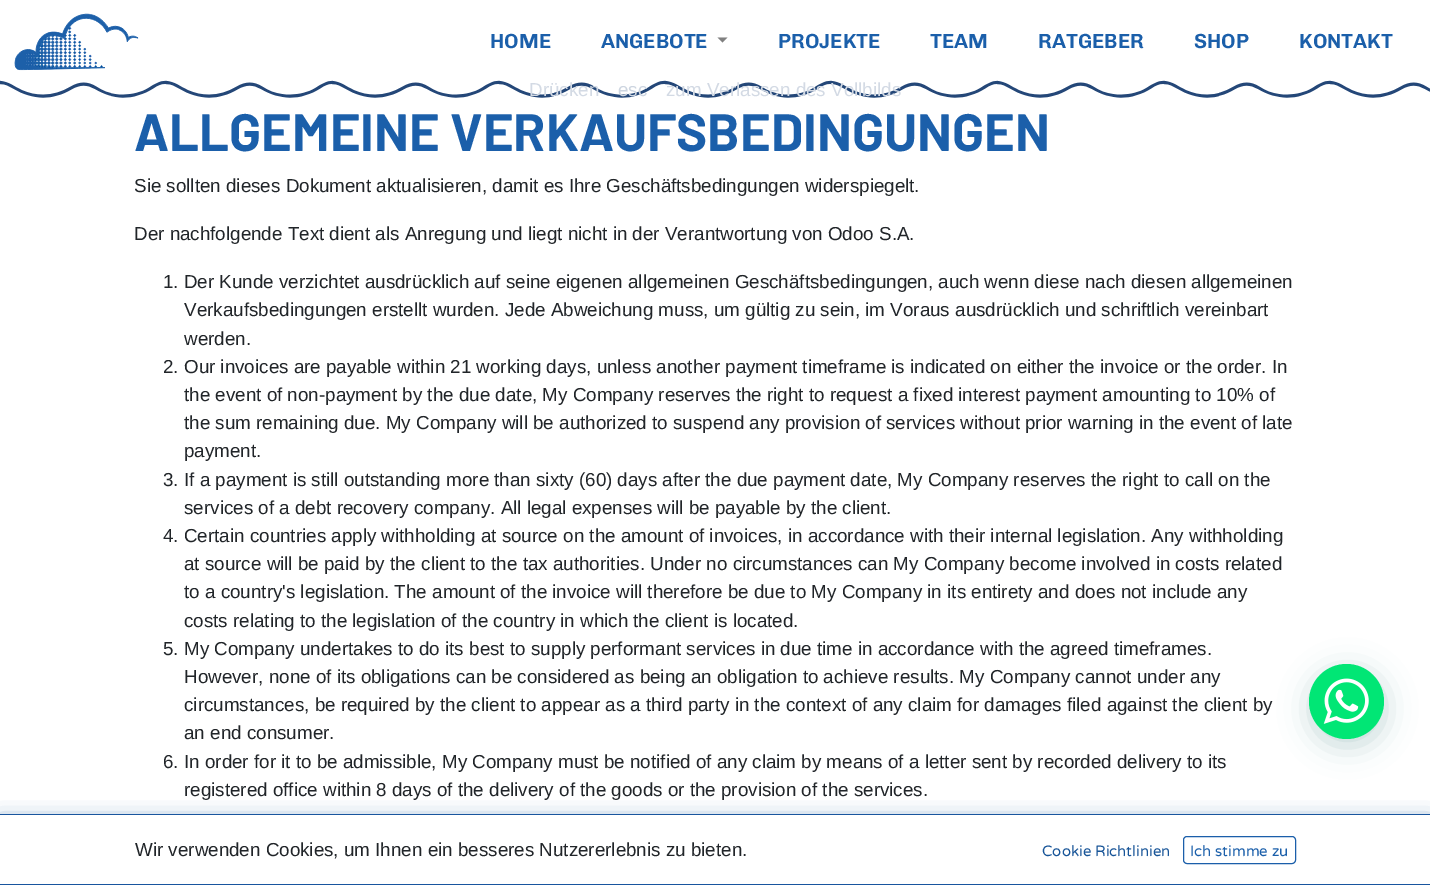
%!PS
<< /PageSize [1430 885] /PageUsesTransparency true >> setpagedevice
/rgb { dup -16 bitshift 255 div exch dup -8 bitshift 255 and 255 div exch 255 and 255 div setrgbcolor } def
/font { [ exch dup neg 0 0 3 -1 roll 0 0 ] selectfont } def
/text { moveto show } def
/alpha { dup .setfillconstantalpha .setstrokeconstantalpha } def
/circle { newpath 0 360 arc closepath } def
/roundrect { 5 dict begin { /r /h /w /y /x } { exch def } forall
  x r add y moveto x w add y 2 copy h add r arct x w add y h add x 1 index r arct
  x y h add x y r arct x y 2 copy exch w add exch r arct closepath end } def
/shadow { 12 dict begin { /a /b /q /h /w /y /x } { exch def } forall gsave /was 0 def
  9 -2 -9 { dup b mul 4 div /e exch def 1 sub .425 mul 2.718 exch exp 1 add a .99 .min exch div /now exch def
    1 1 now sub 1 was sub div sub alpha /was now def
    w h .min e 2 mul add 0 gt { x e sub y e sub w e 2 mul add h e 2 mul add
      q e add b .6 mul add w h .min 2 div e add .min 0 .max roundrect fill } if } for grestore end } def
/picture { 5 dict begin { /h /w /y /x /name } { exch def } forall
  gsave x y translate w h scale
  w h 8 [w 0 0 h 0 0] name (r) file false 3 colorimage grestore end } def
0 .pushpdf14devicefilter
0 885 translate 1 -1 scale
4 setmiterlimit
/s1 { /Chivo-SemiBold 20.5 font 16#1B5FAA rgb } def
/s2 { /Barlow-Bold 52.5 font 16#1B5FAA rgb } def
/s3 { /LiberationSans-Regular 18.8 font 16#212529 rgb } def
/s4 { /VarelaRound-Regular 15 font 16#185598 rgb } def
/s5 { /VarelaRound-Regular 15 font 16#1B5FAA rgb } def
/s6 { /LiberationSans-Regular 18.8 font 16#D3DAE4 rgb } def
/s7 { /LiberationSans-Regular 18.8 font 16#CDD5E0 rgb } def
16#FFFFFF rgb
0 0 1430 885 rectfill
(pic1.raw) 14 13 125 58 picture
s1
(HOME) 490 48 text
(ANGEBOTE) 601 48 text
16#808080 rgb
717.5 37.5 moveto 727.5 37.5 lineto 722.5 42.5 lineto closepath fill
s1
(PROJEKTE) 778 48 text
(TEAM) 930 48 text
(RATGEBER) 1038 48 text
(SHOP) 1194 48 text
(KONTAKT) 1299 48 text
(pic2.raw) 0 80 1430 18 picture
s2
(ALLGEMEINE VERKAUFSBEDINGUNGEN) 134 151 text
s3
(Sie sollten dieses Dokument aktualisieren, damit es Ihre Geschäftsbedingungen widerspiegelt.) 134 192 text
(Der nachfolgende Text dient als Anregung und liegt nicht in der Verantwortung von Odoo S.A.) 134 240 text
(1. Der Kunde verzichtet ausdrücklich auf seine eigenen allgemeinen Geschäftsbedingungen, auch wenn diese nach diesen allgemeinen) 163 288 text
(Verkaufsbedingungen erstellt wurden. Jede Abweichung muss, um gültig zu sein, im Voraus ausdrücklich und schriftlich vereinbart) 184 316 text
(werden.) 184 345 text
(2. Our invoices are payable within 21 working days, unless another payment timeframe is indicated on either the invoice or the order. In) 163 373 text
(the event of non-payment by the due date, My Company reserves the right to request a fixed interest payment amounting to 10% of) 184 401 text
(the sum remaining due. My Company will be authorized to suspend any provision of services without prior warning in the event of late) 184 429 text
(payment.) 184 457 text
(3. If a payment is still outstanding more than sixty \(60\) days after the due payment date, My Company reserves the right to call on the) 163 486 text
(services of a debt recovery company. All legal expenses will be payable by the client.) 184 514 text
(4. Certain countries apply withholding at source on the amount of invoices, in accordance with their internal legislation. Any withholding) 163 542 text
(at source will be paid by the client to the tax authorities. Under no circumstances can My Company become involved in costs related) 184 570 text
(to a country's legislation. The amount of the invoice will therefore be due to My Company in its entirety and does not include any) 184 598 text
(costs relating to the legislation of the country in which the client is located.) 184 627 text
(5. My Company undertakes to do its best to supply performant services in due time in accordance with the agreed timeframes.) 163 655 text
(However, none of its obligations can be considered as being an obligation to achieve results. My Company cannot under any) 184 683 text
(circumstances, be required by the client to appear as a third party in the context of any claim for damages filed against the client by) 184 711 text
(an end consumer.) 184 739 text
(6. In order for it to be admissible, My Company must be notified of any claim by means of a letter sent by recorded delivery to its) 163 768 text
(registered office within 8 days of the delivery of the goods or the provision of the services.) 184 796 text
16#18559E rgb
0 824 1430 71 0 10.5 1 shadow
16#FFFFFF rgb
0 815 1430 69 rectfill
16#18559E rgb
0 814 1430 1 rectfill
0 884 1430 1 rectfill
s3
(Wir verwenden Cookies, um Ihnen ein besseres Nutzererlebnis zu bieten.) 135 856 text
s4
(Cookie Richtlinien) 1042 856 text
16#1B5FAA rgb
1183.5 836.5 112 27 3.5 roundrect stroke
(Ich stimme zu) 1190 856 text
s6
(Drücken) 529 96 text
s7
(esc) 618 96 text
s6
(zum Verlassen des Vollbilds) 666 96 text
16#075E54 rgb
1310 671 75 75 37.5 15 0.24 shadow
16#01E675 rgb
1346.5 701.5 37.5 circle fill
(pic3.raw) 1323 678 46 46 picture
.poppdf14devicefilter showpage
